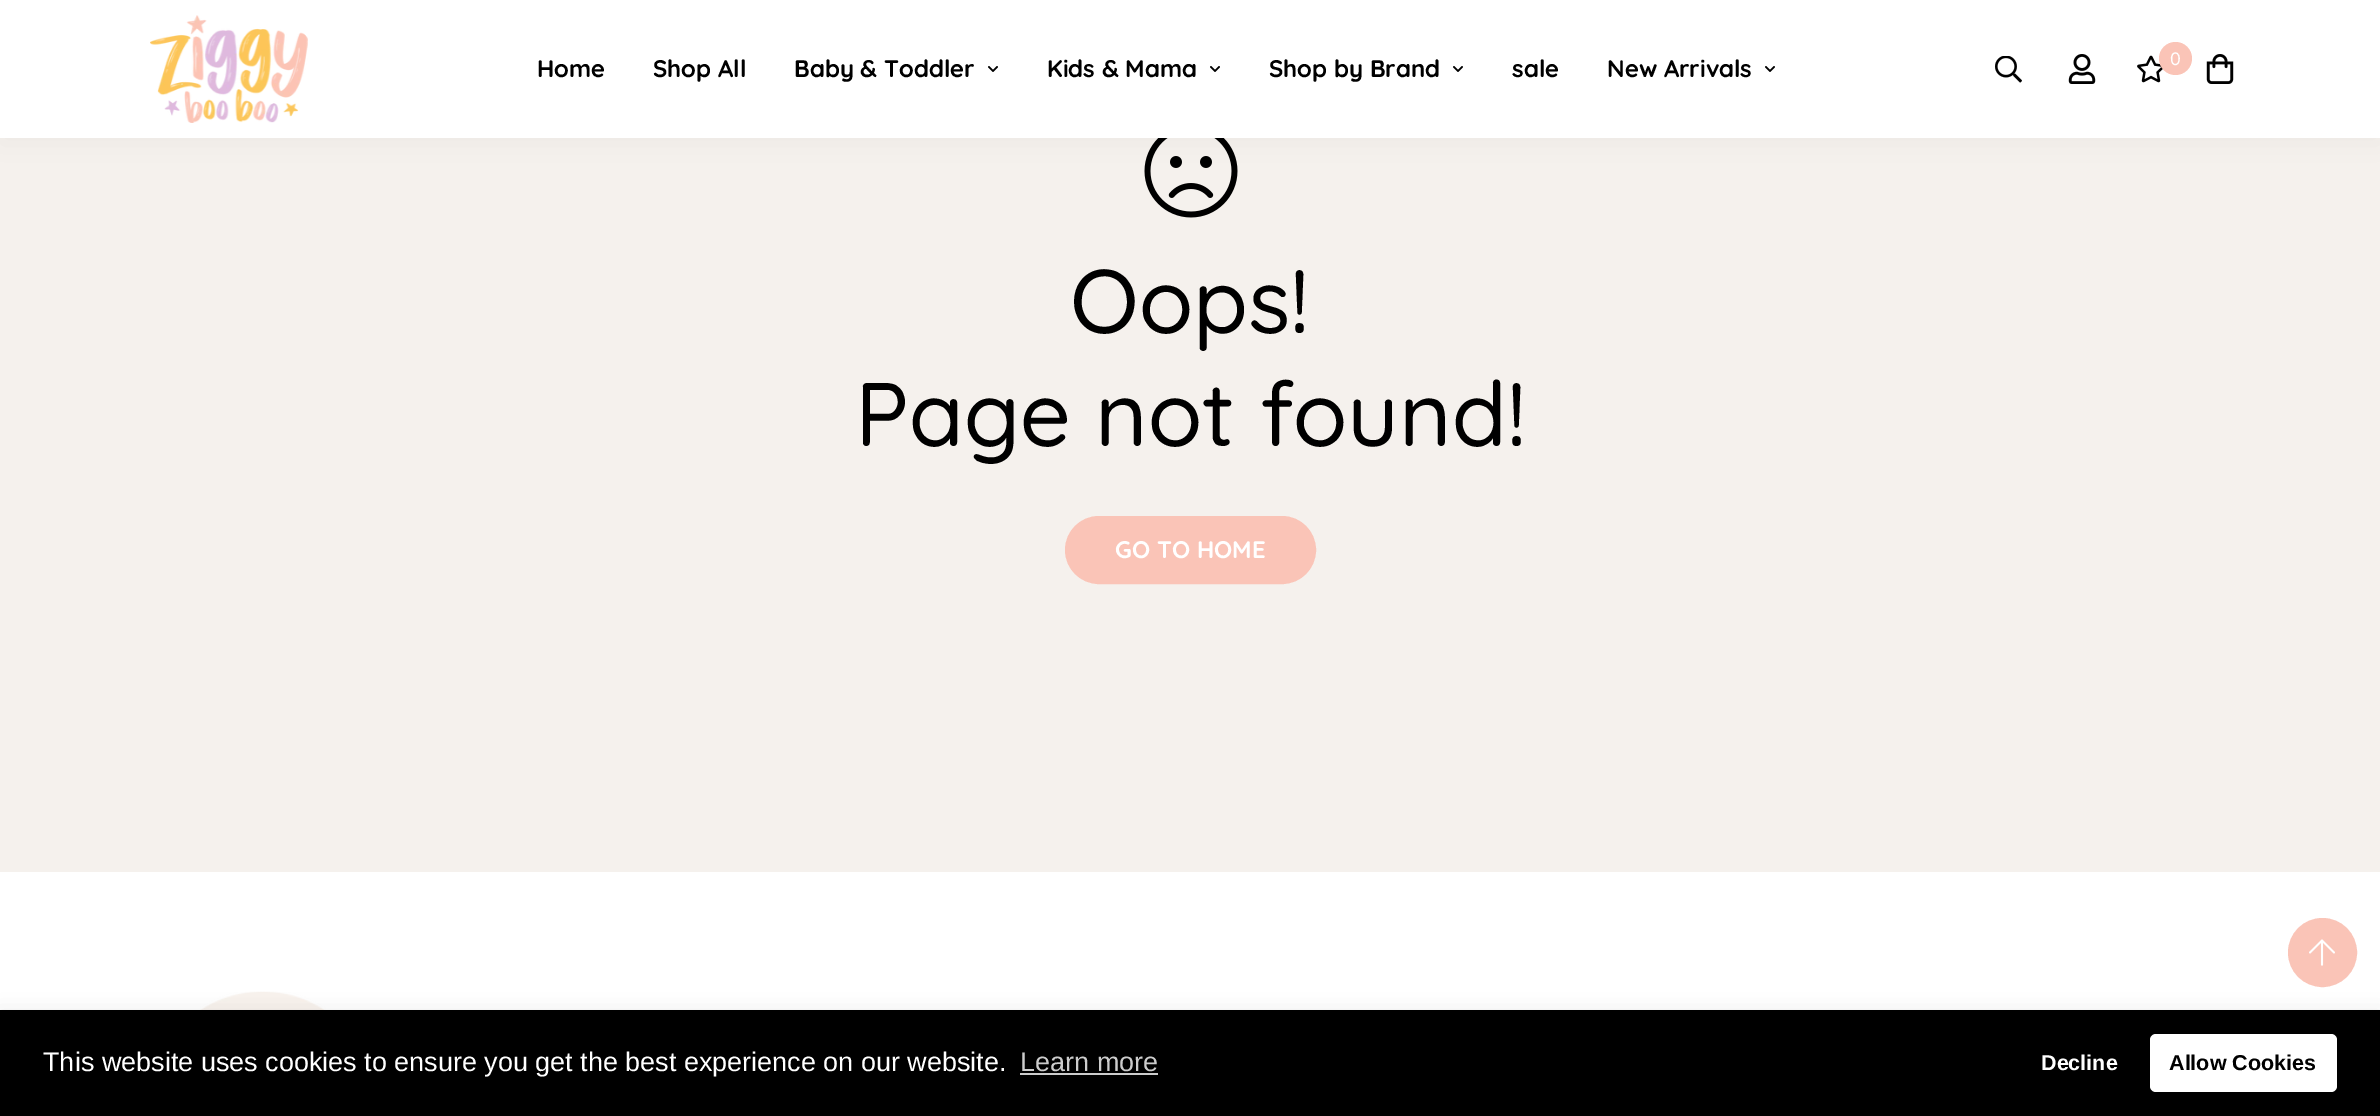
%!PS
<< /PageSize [2380 1116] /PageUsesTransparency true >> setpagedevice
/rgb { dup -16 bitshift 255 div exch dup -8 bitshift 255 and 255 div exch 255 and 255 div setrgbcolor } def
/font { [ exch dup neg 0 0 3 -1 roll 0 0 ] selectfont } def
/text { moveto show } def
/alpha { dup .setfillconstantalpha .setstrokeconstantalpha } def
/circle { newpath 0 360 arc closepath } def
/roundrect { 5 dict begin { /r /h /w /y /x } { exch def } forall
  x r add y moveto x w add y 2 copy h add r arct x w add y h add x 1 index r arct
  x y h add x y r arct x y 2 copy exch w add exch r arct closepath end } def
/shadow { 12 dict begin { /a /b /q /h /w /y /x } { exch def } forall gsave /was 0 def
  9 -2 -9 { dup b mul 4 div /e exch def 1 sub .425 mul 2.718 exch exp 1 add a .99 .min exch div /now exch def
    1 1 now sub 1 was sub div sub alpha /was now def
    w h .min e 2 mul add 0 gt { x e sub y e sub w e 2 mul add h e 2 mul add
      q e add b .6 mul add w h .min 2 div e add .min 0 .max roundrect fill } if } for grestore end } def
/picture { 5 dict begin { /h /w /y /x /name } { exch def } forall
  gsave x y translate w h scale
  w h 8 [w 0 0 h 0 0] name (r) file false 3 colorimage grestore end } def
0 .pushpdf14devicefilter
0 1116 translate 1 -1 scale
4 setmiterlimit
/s1 { /Quicksand-Bold 24 font 16#000000 rgb } def
/s2 { /Quicksand-Medium 18 font 16#FFFFFF rgb } def
/s3 { /Quicksand-Medium 90 font 16#000000 rgb } def
/s4 { /Quicksand-Bold 24 font 16#FFFFFF rgb } def
/s5 { /LiberationSans-Regular 27 font 16#FFFFFF rgb } def
/s6 { /LiberationSans-Regular 27 font 16#CCCCCC rgb } def
/s7 { /LiberationSans-Bold 21.5 font 16#FFFFFF rgb } def
/s8 { /LiberationSans-Bold 21.5 font 16#000000 rgb } def
16#FFFFFF rgb
0 0 2380 1116 rectfill
16#F5F1ED rgb
0 138 2380 734 rectfill
(pic7.raw) 1144 138 94 80 picture
16#000000 rgb
0 6 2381 138 0 15 0.04 shadow
16#FFFFFF rgb
0 0 2380 138 rectfill
(pic1.raw) 150 15 158 108 picture
s1
(Home) 537 77 text
(Shop All) 653 77 text
(Baby & Toddler) 794 77 text
(pic2.raw) 988 66 10 6 picture
(Kids & Mama) 1047 77 text
(pic2.raw) 1210 66 10 6 picture
(Shop by Brand) 1269 77 text
(pic2.raw) 1453 66 10 6 picture
(sale) 1512 77 text
(New Arrivals) 1607 77 text
(pic2.raw) 1765 66 10 6 picture
(pic3.raw) 1995 56 27 27 picture
(pic4.raw) 2068 54 28 30 picture
(pic5.raw) 2137 55 26 28 picture
16#FAC4B7 rgb
2175.5 58.5 16.5 circle fill
s2
(0) 2170 65 text
(pic6.raw) 2206 54 28 30 picture
s3
(Oops!) 1070 333 text
(Page not found!) 855 446 text
16#FAC4B7 rgb
1066 517 249 66 33 roundrect gsave fill grestore
2 setlinewidth
stroke
s4
(GO TO HOME) 1115 558 text
16#FAC4B7 rgb
2322.5 952.5 33.5 circle gsave fill grestore
stroke
(pic8.raw) 2309 939 26 27 picture
(pic9.raw) 200 991 126 19 picture
16#000000 rgb
0 1017 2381 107 0 11 0.15 shadow
0 1010 2380 106 rectfill
s5
(This website uses cookies to ensure you get the best experience on our website.) 43 1071 text
s6
(Learn more) 1020 1071 text
1020 1073 138 2 rectfill
s7
(Decline) 2041 1070 text
2150 1034 187 58 6 roundrect fill
s8
(Allow Cookies) 2169 1070 text
.poppdf14devicefilter showpage
